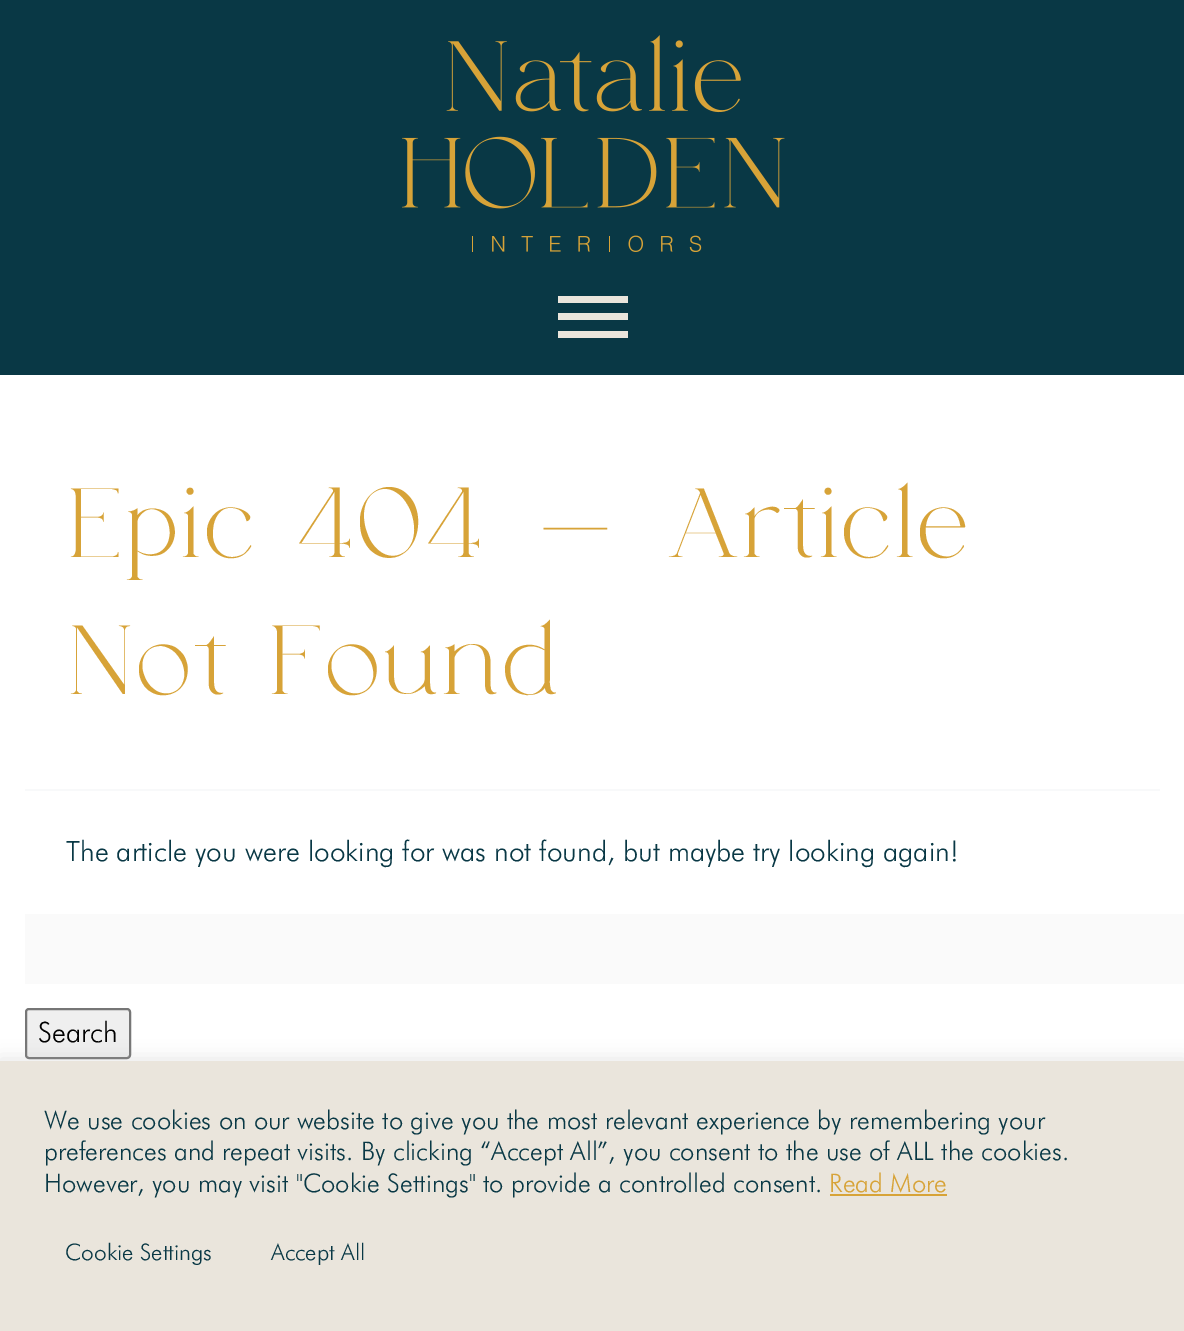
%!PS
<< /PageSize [1184 1331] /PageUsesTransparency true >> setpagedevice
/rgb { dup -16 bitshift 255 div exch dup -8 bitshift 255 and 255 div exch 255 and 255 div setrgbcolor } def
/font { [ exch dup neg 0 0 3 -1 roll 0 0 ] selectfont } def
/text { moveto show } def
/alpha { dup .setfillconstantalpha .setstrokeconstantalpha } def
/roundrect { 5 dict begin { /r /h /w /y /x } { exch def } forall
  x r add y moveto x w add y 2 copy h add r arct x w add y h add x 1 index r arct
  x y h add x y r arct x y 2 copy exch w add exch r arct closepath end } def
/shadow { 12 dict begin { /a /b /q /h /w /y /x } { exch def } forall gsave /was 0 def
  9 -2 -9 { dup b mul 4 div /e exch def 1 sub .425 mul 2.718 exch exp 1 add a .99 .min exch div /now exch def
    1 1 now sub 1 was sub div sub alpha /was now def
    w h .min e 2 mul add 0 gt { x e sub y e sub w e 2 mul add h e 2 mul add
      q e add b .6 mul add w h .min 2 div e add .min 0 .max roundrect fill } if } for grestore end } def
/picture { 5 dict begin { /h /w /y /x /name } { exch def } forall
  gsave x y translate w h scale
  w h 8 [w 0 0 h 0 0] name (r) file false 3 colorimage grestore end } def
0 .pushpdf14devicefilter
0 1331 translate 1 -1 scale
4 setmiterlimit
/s1 { /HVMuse-Regular 98 font 16#D7A338 rgb } def
/s2 { /Futura-Light 28 font 16#093845 rgb } def
/s3 { /Futura-Light 28 font 16#000000 rgb } def
/s4 { /Futura-Light 25.65 font 16#093845 rgb } def
/s5 { /Futura-Light 25.65 font 16#D7A338 rgb } def
/s6 { /Futura-Light 22.75 font 16#093845 rgb } def
16#FFFFFF rgb
0 0 1184 1331 rectfill
16#093845 rgb
0 0 1184 375 rectfill
(pic1.raw) 402 35 383 217 picture
16#EAE5DC rgb
558 296 70 7 rectfill
558 313 70 7 rectfill
558 331 70 7 rectfill
16#F8F9FA rgb
25 789 1135 2 rectfill
s1
(Epic 404 - Article) 66 557 text
(Not Found) 66 694 text
s2
(The article you were looking for was not found, but maybe try looking again!) 66 861 text
16#FAFAFA rgb
25 914 1159 70 rectfill
16#EFEFEF rgb
26 1009 104 49 3 roundrect gsave fill grestore
16#767676 rgb
2 setlinewidth
stroke
s3
(Search) 38 1042 text
16#ACABAB rgb
0 1059 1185 271 0 9 0.3 shadow
16#EAE5DC rgb
0 1061 1184 270 rectfill
s4
(We use cookies on our website to give you the most relevant experience by remembering your) 44 1129 text
(preferences and repeat visits. By clicking “Accept All”, you consent to the use of ALL the cookies.) 44 1160 text
(However, you may visit "Cookie Settings" to provide a controlled consent.) 44 1192 text
s5
(Read More) 829 1192 text
830 1194 117 2 rectfill
s6
(Cookie Settings) 65 1260 text
(Accept All) 271 1260 text
.poppdf14devicefilter showpage
